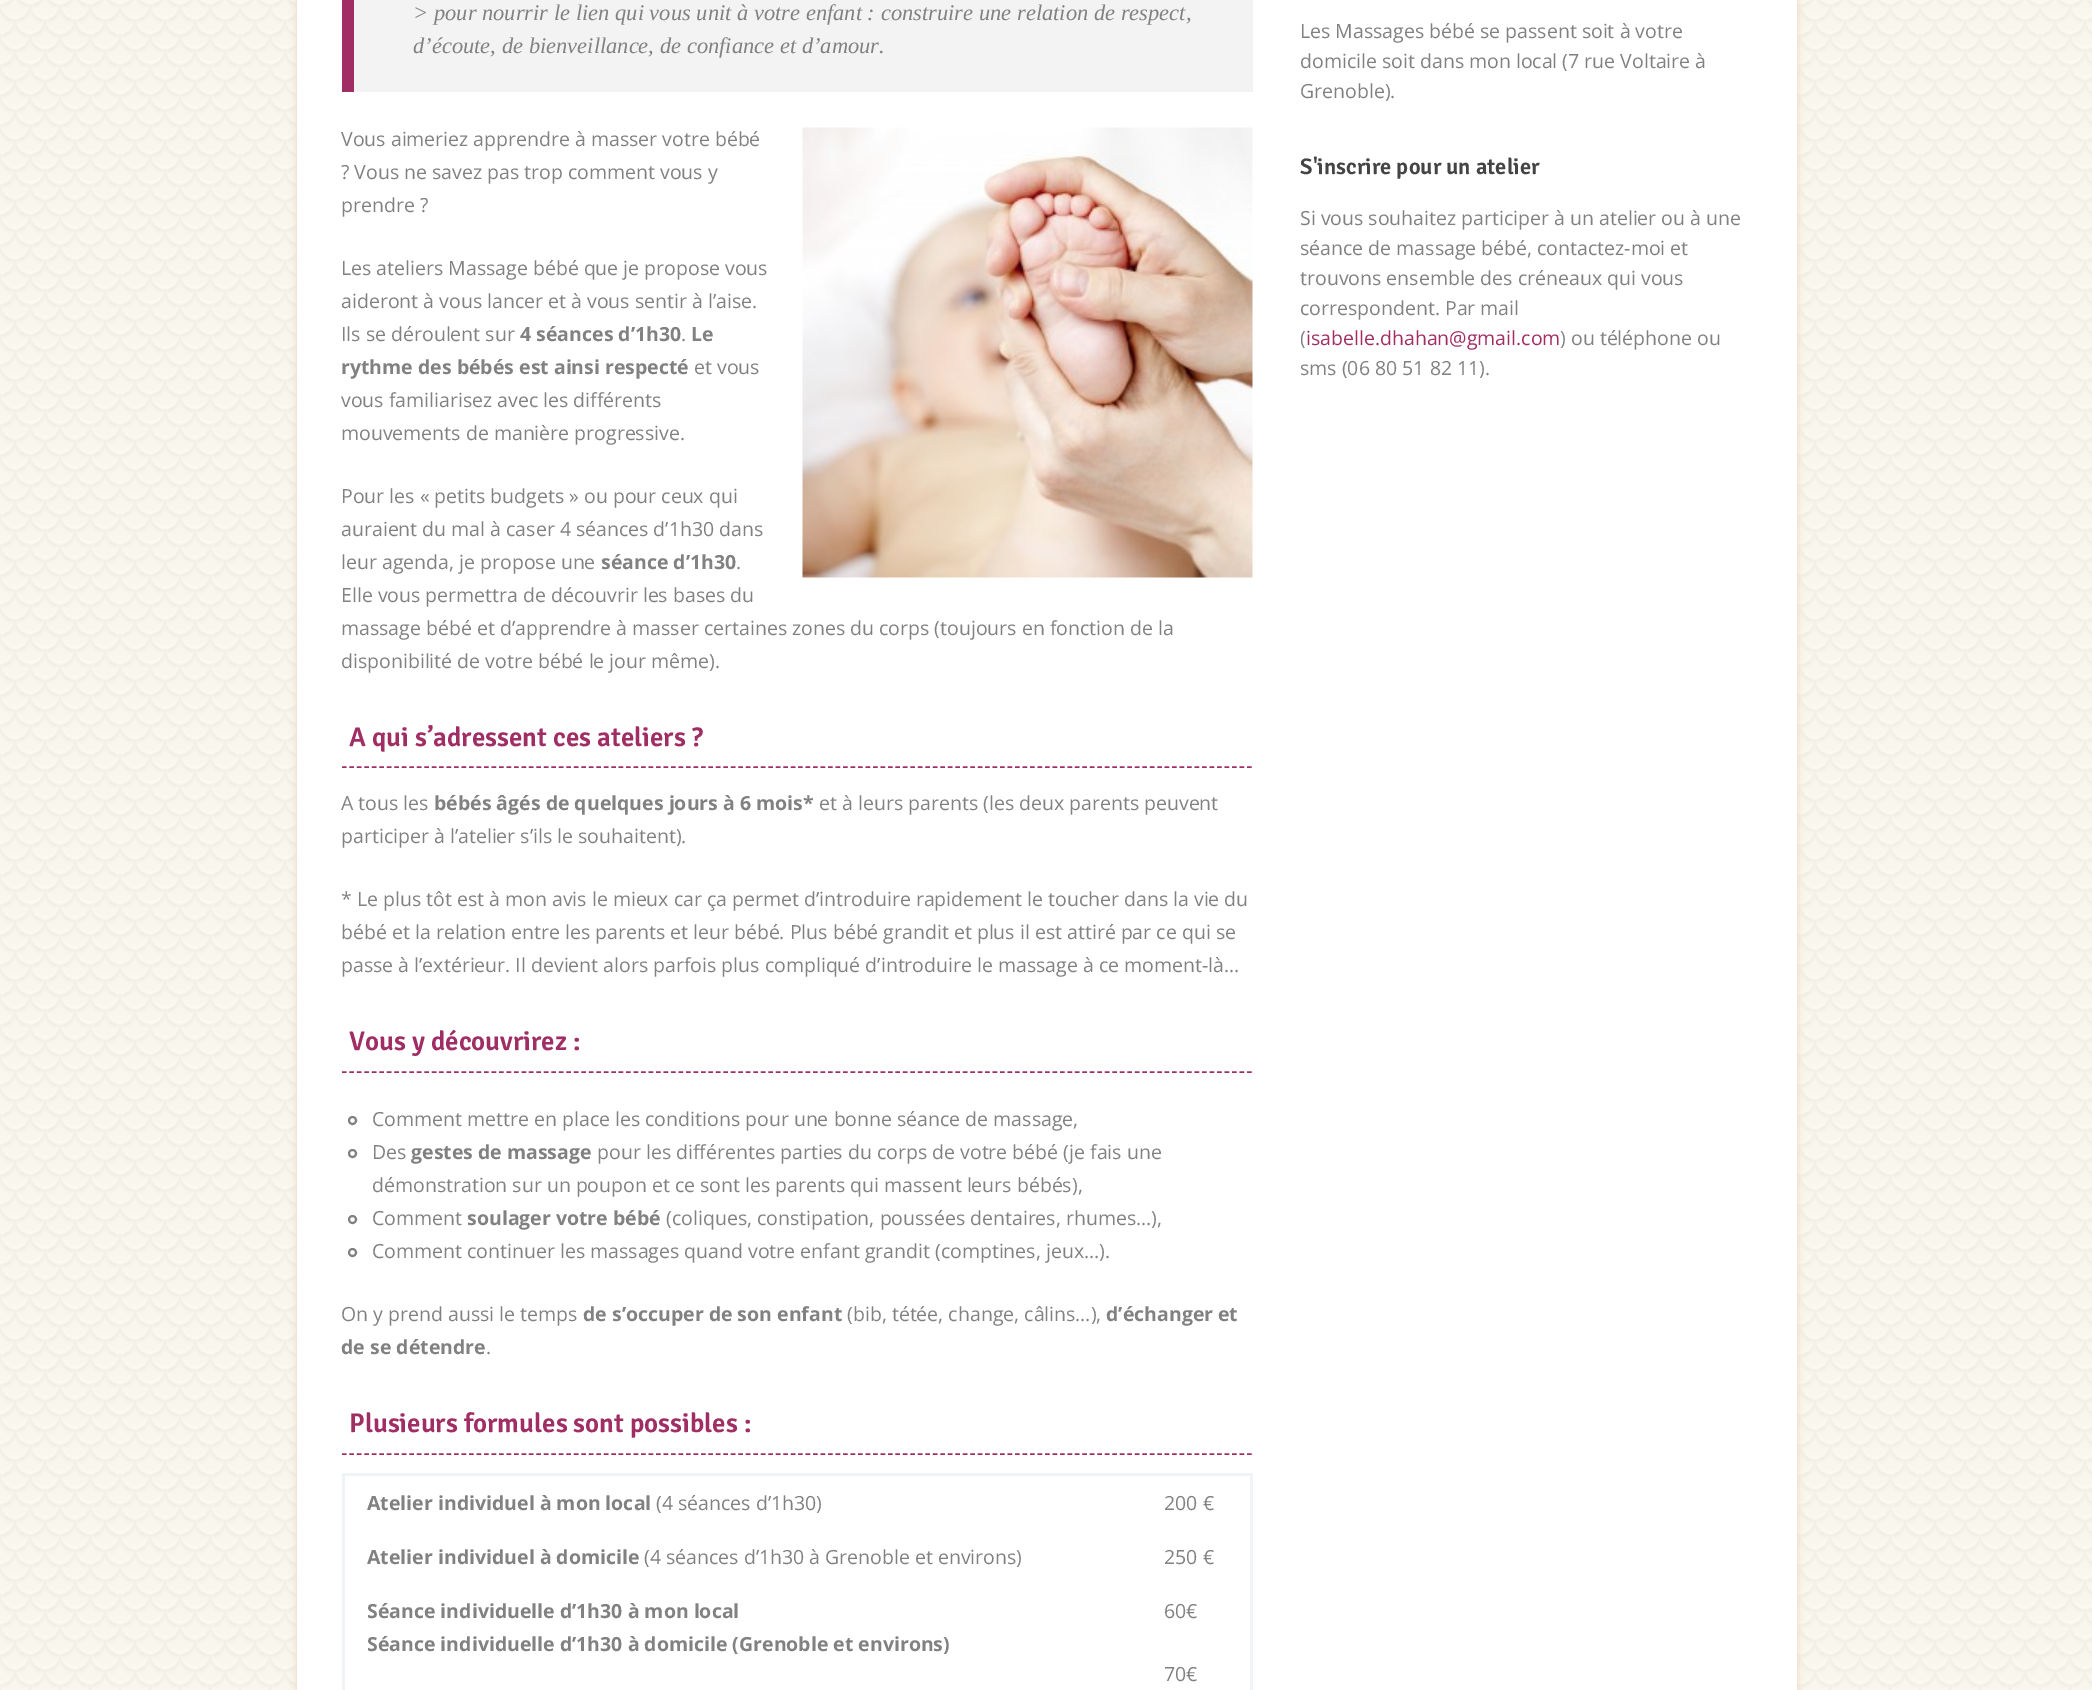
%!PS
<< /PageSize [2092 1690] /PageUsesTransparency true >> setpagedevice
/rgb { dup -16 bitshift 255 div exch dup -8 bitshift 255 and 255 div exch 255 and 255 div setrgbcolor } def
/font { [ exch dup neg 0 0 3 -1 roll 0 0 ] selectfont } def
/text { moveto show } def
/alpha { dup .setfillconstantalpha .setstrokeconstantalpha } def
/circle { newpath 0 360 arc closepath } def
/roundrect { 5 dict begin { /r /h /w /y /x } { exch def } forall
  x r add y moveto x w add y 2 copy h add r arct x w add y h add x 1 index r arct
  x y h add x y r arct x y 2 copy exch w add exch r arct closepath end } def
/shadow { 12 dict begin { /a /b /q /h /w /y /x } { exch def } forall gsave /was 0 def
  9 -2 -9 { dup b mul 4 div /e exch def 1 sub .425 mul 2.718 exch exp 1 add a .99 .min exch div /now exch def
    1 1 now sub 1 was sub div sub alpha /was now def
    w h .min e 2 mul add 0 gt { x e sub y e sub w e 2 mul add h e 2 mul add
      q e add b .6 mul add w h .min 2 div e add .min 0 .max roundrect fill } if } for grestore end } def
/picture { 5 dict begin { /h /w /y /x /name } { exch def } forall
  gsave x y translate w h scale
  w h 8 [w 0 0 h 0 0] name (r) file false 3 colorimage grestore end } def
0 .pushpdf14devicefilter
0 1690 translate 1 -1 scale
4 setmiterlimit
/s1 { /LiberationSerif-Italic 22.5 font 16#818181 rgb } def
/s2 { /OpenSans-Regular 19.5 font 16#818181 rgb } def
/s3 { /OpenSans-Bold 19.5 font 16#818181 rgb } def
/s4 { /Signika-SemiBold 27 font 16#A02E64 rgb } def
/s5 { /Signika-SemiBold 22.5 font 16#444444 rgb } def
/s6 { /OpenSans-Regular 19.5 font 16#A02E64 rgb } def
16#FFFFFF rgb
0 0 2092 1690 rectfill
(pic1.raw) 0 0 2092 1690 picture
16#EAD4BF rgb
297 -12 1500 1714 0 4 1 shadow
16#FFFFFF rgb
297 0 1500 1690 rectfill
16#F3F3F3 rgb
354 0 899 92 rectfill
16#A02E64 rgb
342 0 12 92 rectfill
s1
(> pour nourrir le lien qui vous unit à votre enfant : construire une relation de respect,) 413 20 text
(d’écoute, de bienveillance, de confiance et d’amour.) 413 53 text
s2
(Vous aimeriez apprendre à masser votre bébé) 341 146 text
(? Vous ne savez pas trop comment vous y) 341 179 text
(prendre ?) 341 212 text
(pic2.raw) 802 127 451 451 picture
(Les ateliers Massage bébé que je propose vous) 341 275 text
(aideront à vous lancer et à vous sentir à l’aise.) 341 308 text
(Ils se déroulent sur) 341 341 text
s3
(4 séances d’1h30) 520 341 text
s2
(.) 681 341 text
s3
(Le) 691 341 text
(rythme des bébés est ainsi respecté) 341 374 text
s2
(et vous) 694 374 text
(vous familiarisez avec les différents) 341 407 text
(mouvements de manière progressive.) 341 440 text
(Pour les « petits budgets » ou pour ceux qui) 341 503 text
(auraient du mal à caser 4 séances d’1h30 dans) 341 536 text
(leur agenda, je propose une) 341 569 text
s3
(séance d’1h30) 601 569 text
s2
(.) 736 569 text
(Elle vous permettra de découvrir les bases du) 341 602 text
(massage bébé et d’apprendre à masser certaines zones du corps \(toujours en fonction de la) 341 635 text
(disponibilité de votre bébé le jour même\).) 341 668 text
16#A02E64 rgb
1.5 setlinewidth
[4.5 2.98] 0 setdash
342 767 moveto 1252.5 767 lineto stroke
s4
(A qui s’adressent ces ateliers ?) 349 746 text
s2
(A tous les) 341 810 text
s3
(bébés âgés de quelques jours à 6 mois*) 434 810 text
s2
(et à leurs parents \(les deux parents peuvent) 819 810 text
(participer à l’atelier s’ils le souhaitent\).) 341 843 text
(* Le plus tôt est à mon avis le mieux car ça permet d’introduire rapidement le toucher dans la vie du) 341 906 text
(bébé et la relation entre les parents et leur bébé. Plus bébé grandit et plus il est attiré par ce qui se) 341 939 text
(passe à l’extérieur. Il devient alors parfois plus compliqué d’introduire le massage à ce moment-là…) 341 972 text
16#A02E64 rgb
342 1072 moveto 1252.5 1072 lineto stroke
s4
(Vous y découvrirez :) 349 1050 text
16#818181 rgb
2 setlinewidth
[] 0 setdash
352.5 1120.5 3.5 circle stroke
s2
(Comment mettre en place les conditions pour une bonne séance de massage,) 372 1126 text
352.5 1153.5 3.5 circle stroke
(Des) 372 1159 text
s3
(gestes de massage) 411 1159 text
s2
(pour les différentes parties du corps de votre bébé \(je fais une) 597 1159 text
(démonstration sur un poupon et ce sont les parents qui massent leurs bébés\),) 372 1192 text
352.5 1219.5 3.5 circle stroke
(Comment) 372 1225 text
s3
(soulager votre bébé) 467 1225 text
s2
(\(coliques, constipation, poussées dentaires, rhumes…\),) 666 1225 text
352.5 1252.5 3.5 circle stroke
(Comment continuer les massages quand votre enfant grandit \(comptines, jeux…\).) 372 1258 text
(On y prend aussi le temps) 341 1321 text
s3
(de s’occuper de son enfant) 583 1321 text
s2
(\(bib, tétée, change, câlins…\),) 847 1321 text
s3
(d’échanger et) 1106 1321 text
(de se détendre) 341 1354 text
s2
(.) 486 1354 text
16#A02E64 rgb
1.5 setlinewidth
[4.5 2.98] 0 setdash
342 1454 moveto 1252.5 1454 lineto stroke
s4
(Plusieurs formules sont possibles :) 349 1432 text
16#F1F4F6 rgb
342 1473 911 3 rectfill
1250 1473 3 217 rectfill
342 1473 3 217 rectfill
s3
(Atelier individuel à mon local) 367 1510 text
s2
(\(4 séances d’1h30\)) 656 1510 text
(200 €) 1164 1510 text
s3
(Atelier individuel à domicile) 367 1564 text
s2
(\(4 séances d’1h30 à Grenoble et environs\)) 644 1564 text
(250 €) 1164 1564 text
s3
(Séance individuelle d’1h30 à mon local) 367 1618 text
(Séance individuelle d’1h30 à domicile \(Grenoble et environs\)) 367 1651 text
s2
(60€) 1164 1618 text
(70€) 1164 1681 text
(Les Massages bébé se passent soit à votre) 1300 38 text
(domicile soit dans mon local \(7 rue Voltaire à) 1300 68 text
(Grenoble\).) 1300 98 text
s5
(S'inscrire pour un atelier) 1300 174 text
s2
(Si vous souhaitez participer à un atelier ou à une) 1300 225 text
(séance de massage bébé, contactez-moi et) 1300 255 text
(trouvons ensemble des créneaux qui vous) 1300 285 text
(correspondent. Par mail) 1300 315 text
gsave
1301 146 451 237 rectclip
(\() 1300 345 text
grestore
s6
(isabelle.dhahan@gmail.com) 1306 345 text
s2
(\) ou téléphone ou) 1560 345 text
(sms \(06 80 51 82 11\).) 1300 375 text
.poppdf14devicefilter showpage
